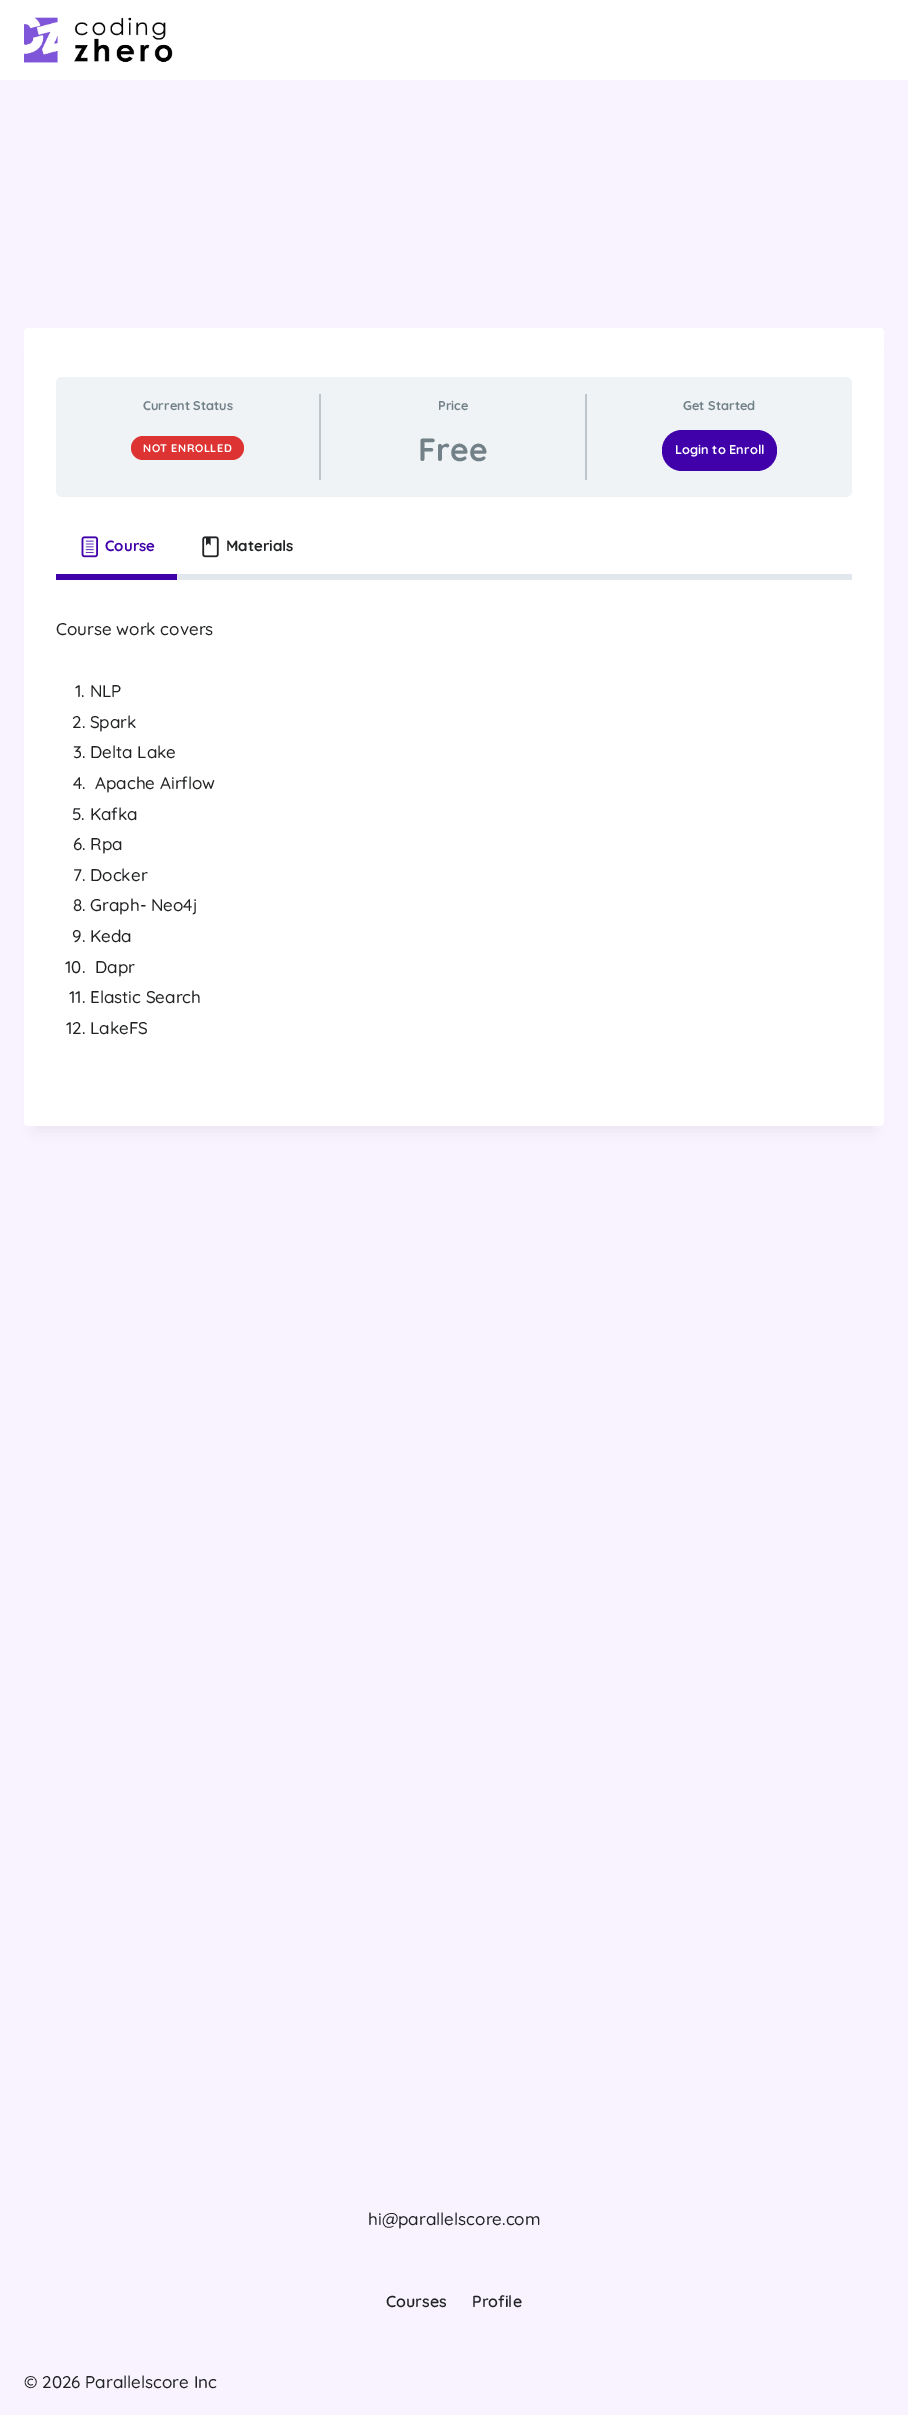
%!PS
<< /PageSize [908 2415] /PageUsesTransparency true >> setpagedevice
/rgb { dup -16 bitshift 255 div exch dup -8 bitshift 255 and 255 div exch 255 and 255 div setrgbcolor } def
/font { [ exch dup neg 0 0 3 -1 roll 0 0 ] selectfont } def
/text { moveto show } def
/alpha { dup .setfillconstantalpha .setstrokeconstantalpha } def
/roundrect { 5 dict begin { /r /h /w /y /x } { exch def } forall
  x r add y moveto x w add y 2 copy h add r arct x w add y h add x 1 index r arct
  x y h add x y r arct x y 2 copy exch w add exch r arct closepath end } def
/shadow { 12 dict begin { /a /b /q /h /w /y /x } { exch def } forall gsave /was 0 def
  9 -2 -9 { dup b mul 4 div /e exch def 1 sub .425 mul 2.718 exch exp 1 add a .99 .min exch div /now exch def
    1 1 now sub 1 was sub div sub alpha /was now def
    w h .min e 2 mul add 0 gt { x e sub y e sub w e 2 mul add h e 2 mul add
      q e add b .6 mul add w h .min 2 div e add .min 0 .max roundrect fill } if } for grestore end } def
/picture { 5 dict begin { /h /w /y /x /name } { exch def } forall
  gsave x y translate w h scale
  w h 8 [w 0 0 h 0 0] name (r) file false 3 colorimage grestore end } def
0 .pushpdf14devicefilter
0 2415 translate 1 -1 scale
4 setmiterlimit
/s1 { /Quicksand-Bold 12.75 font 16#728188 rgb } def
/s2 { /Quicksand-Bold 32 font 16#728188 rgb } def
/s3 { /Quicksand-Bold 12.75 font 16#FFFFFF rgb } def
/s4 { /Quicksand-Bold 15 font 16#4000AA rgb } def
/s5 { /Quicksand-Bold 15 font 16#202223 rgb } def
/s6 { /Quicksand-Medium 17 font 16#202223 rgb } def
/s7 { /Quicksand-SemiBold 16 font 16#202223 rgb } def
16#F8F3FF rgb
0 0 908 2415 rectfill
16#FFFFFF rgb
0 0 908 80 rectfill
(pic1.raw) 24 17 149 46 picture
16#000000 rgb
34 353 840 778 0 7.5 0.05 shadow
16#FFFFFF rgb
24 328 860 798 4 roundrect fill
16#F0F3F6 rgb
56 377 796 120 6 roundrect fill
16#BEC5CB rgb
319 394 2 86 rectfill
s1
(Current Status) 143 410 text
16#DD3333 rgb
131 436 113 24 12 roundrect fill
/Quicksand-Bold 11 font
16#FFFFFF rgb
143 452 moveto 0.5 0 (NOT ENROLLED) ashow
16#BEC5CB rgb
585 394 2 86 rectfill
s1
(Price) 438 410 text
s2
(Free) 418 461 text
s1
(Get Started) 683 410 text
16#4000AA rgb
662 430 115 41 20 roundrect fill
s3
(Login to Enroll) 675 454 text
(pic2.raw) 81 536 17 22 picture
s4
(Course) 105 551 text
56 574 121 6 rectfill
(pic3.raw) 202 536 17 22 picture
s5
(Materials) 226 551 text
16#E2E7ED rgb
177 574 675 6 rectfill
s6
(Course work covers) 56 635 text
(1. NLP) 75 697 text
(2. Spark) 72 728 text
(3. Delta Lake) 73 758 text
(4.) 73 789 text
(Apache Airflow) 95 789 text
(5. Kafka) 72 820 text
(6. Rpa) 73 850 text
(7. Docker) 73 881 text
(8. Graph- Neo4j) 73 911 text
(9. Keda) 72 942 text
(10.) 65 973 text
(Dapr) 95 973 text
(11. Elastic Search) 69 1003 text
(12. LakeFS) 66 1034 text
(hi@parallelscore.com) 368 2225 text
s7
(Courses) 386 2307 text
(Profile) 472 2307 text
s6
(© 2026 Parallelscore Inc) 24 2388 text
.poppdf14devicefilter showpage
